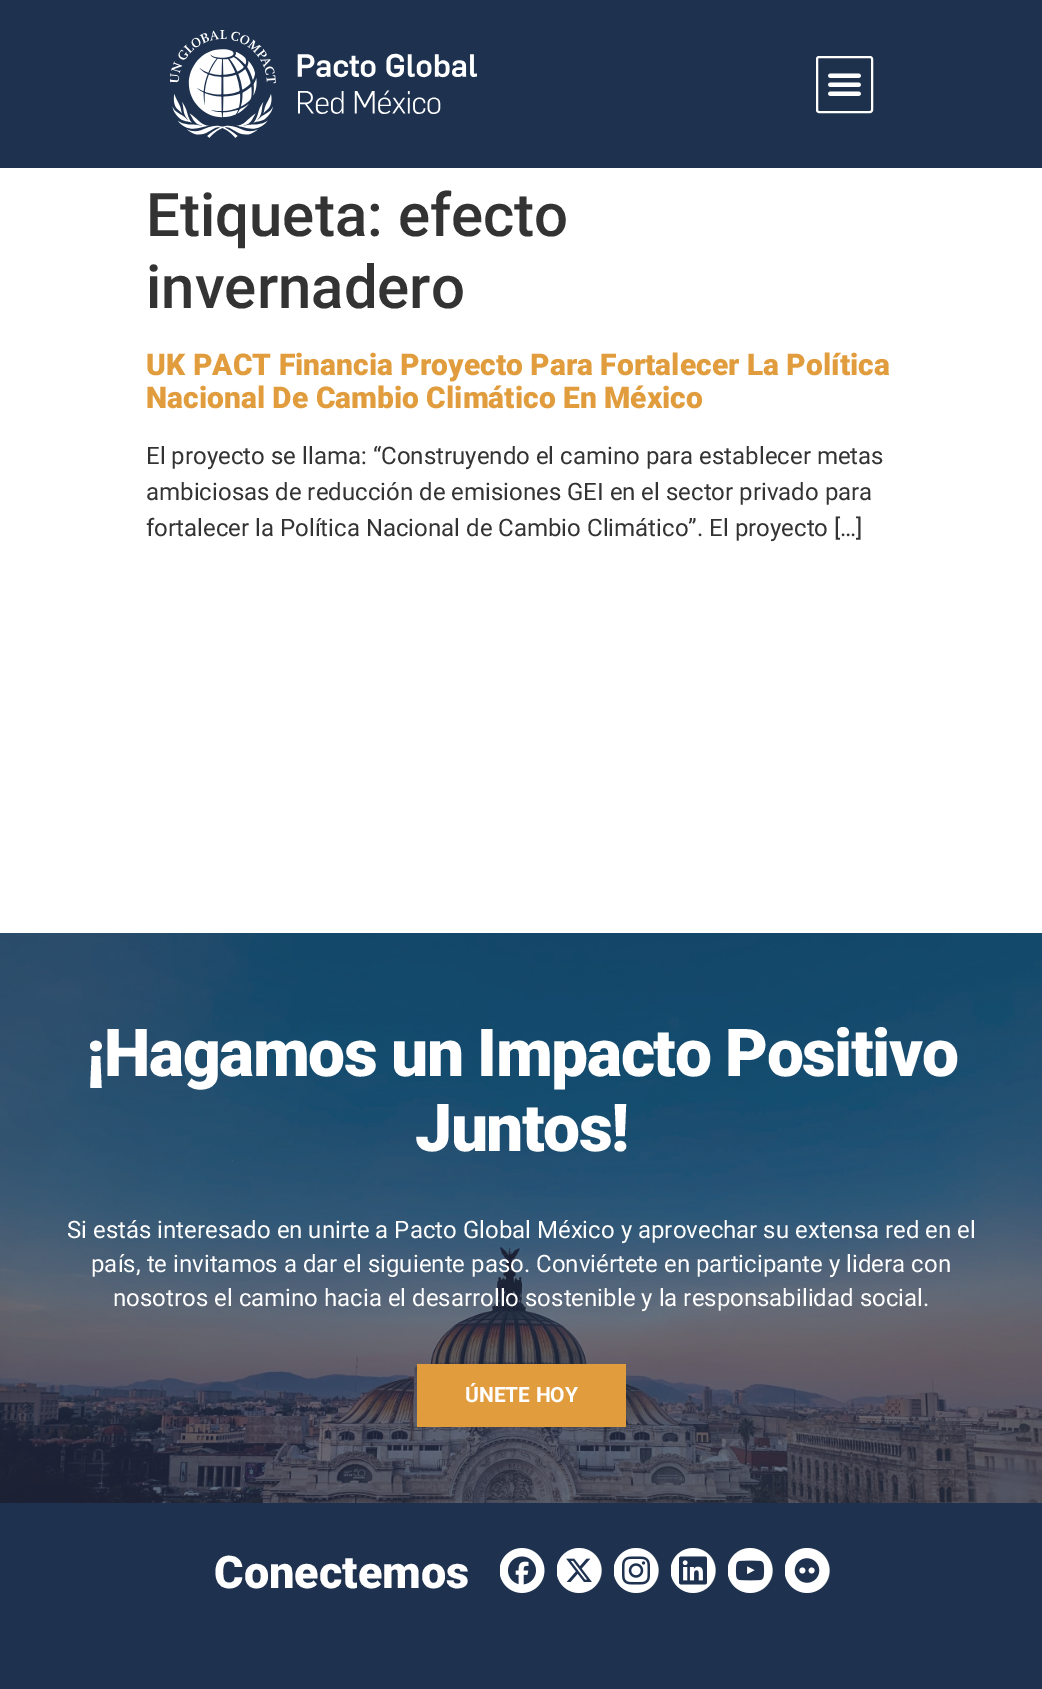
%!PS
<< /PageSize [1042 1689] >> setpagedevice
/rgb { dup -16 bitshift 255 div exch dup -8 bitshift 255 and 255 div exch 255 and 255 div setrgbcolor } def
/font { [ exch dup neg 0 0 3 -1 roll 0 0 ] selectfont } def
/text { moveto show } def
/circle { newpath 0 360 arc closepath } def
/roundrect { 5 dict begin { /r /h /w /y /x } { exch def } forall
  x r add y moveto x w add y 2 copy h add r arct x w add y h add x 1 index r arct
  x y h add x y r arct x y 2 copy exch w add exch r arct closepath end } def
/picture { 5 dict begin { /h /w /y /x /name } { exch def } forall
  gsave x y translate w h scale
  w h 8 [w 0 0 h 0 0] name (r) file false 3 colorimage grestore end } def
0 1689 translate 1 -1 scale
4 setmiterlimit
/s1 { /Roboto-Medium 60 font 16#333333 rgb } def
/s2 { /Roboto-Black 30 font 16#E19D3D rgb } def
/s3 { /Roboto-Regular 24 font 16#333333 rgb } def
/s4 { /Roboto-Regular 24 font 16#FFFFFF rgb } def
/s5 { /Roboto-Bold 21 font 16#FFFFFF rgb } def
/s6 { /Roboto-Black 45 font 16#FFFFFF rgb } def
16#FFFFFF rgb
0 0 1042 1689 rectfill
16#1E3250 rgb
0 0 1042 168 rectfill
(pic1.raw) 170 30 307 108 picture
16#1D304C rgb
817 57 55 55 2 roundrect gsave fill grestore
16#FFFFFF rgb
2 setlinewidth
stroke
(pic2.raw) 828 73 33 23 picture
s1
(Etiqueta: efecto) 146 236 text
(invernadero) 146 308 text
s2
(UK PACT Financia Proyecto Para Fortalecer La Política) 146 375 text
(Nacional De Cambio Climático En México) 146 408 text
s3
(El proyecto se llama: “Construyendo el camino para establecer metas) 146 464 text
(ambiciosas de reducción de emisiones GEI en el sector privado para) 146 500 text
(fortalecer la Política Nacional de Cambio Climático”. El proyecto […]) 146 536 text
(pic3.raw) 0 933 1042 570 picture
/Roboto-Black 66 font
16#FFFFFF rgb
86 1076 moveto -1.5 0 (¡Hagamos un Impacto Positivo) ashow
415 1151 moveto -1.5 0 (Juntos!) ashow
s4
(Si estás interesado en unirte a Pacto Global México y aprovechar su extensa red en el) 67 1238 text
(país, te invitamos a dar el siguiente paso. Conviértete en participante y lidera con) 91 1272 text
(nosotros el camino hacia el desarrollo sostenible y la responsabilidad social.) 113 1306 text
16#E19D3D rgb
417 1364 209 63 rectfill
s5
(ÚNETE HOY) 465 1402 text
16#1E3250 rgb
0 1503 1042 186 rectfill
s6
(Conectemos) 214 1588 text
(pic4.raw) 500 1548 45 45 picture
16#69727D rgb
579.5 1570.5 22.5 circle fill
(pic5.raw) 557 1548 45 45 picture
636.5 1570.5 22.5 circle fill
(pic6.raw) 614 1548 45 45 picture
693.5 1570.5 22.5 circle fill
(pic7.raw) 671 1548 45 45 picture
750.5 1570.5 22.5 circle fill
(pic8.raw) 728 1548 45 45 picture
807.5 1570.5 22.5 circle fill
(pic9.raw) 785 1548 45 45 picture
showpage
